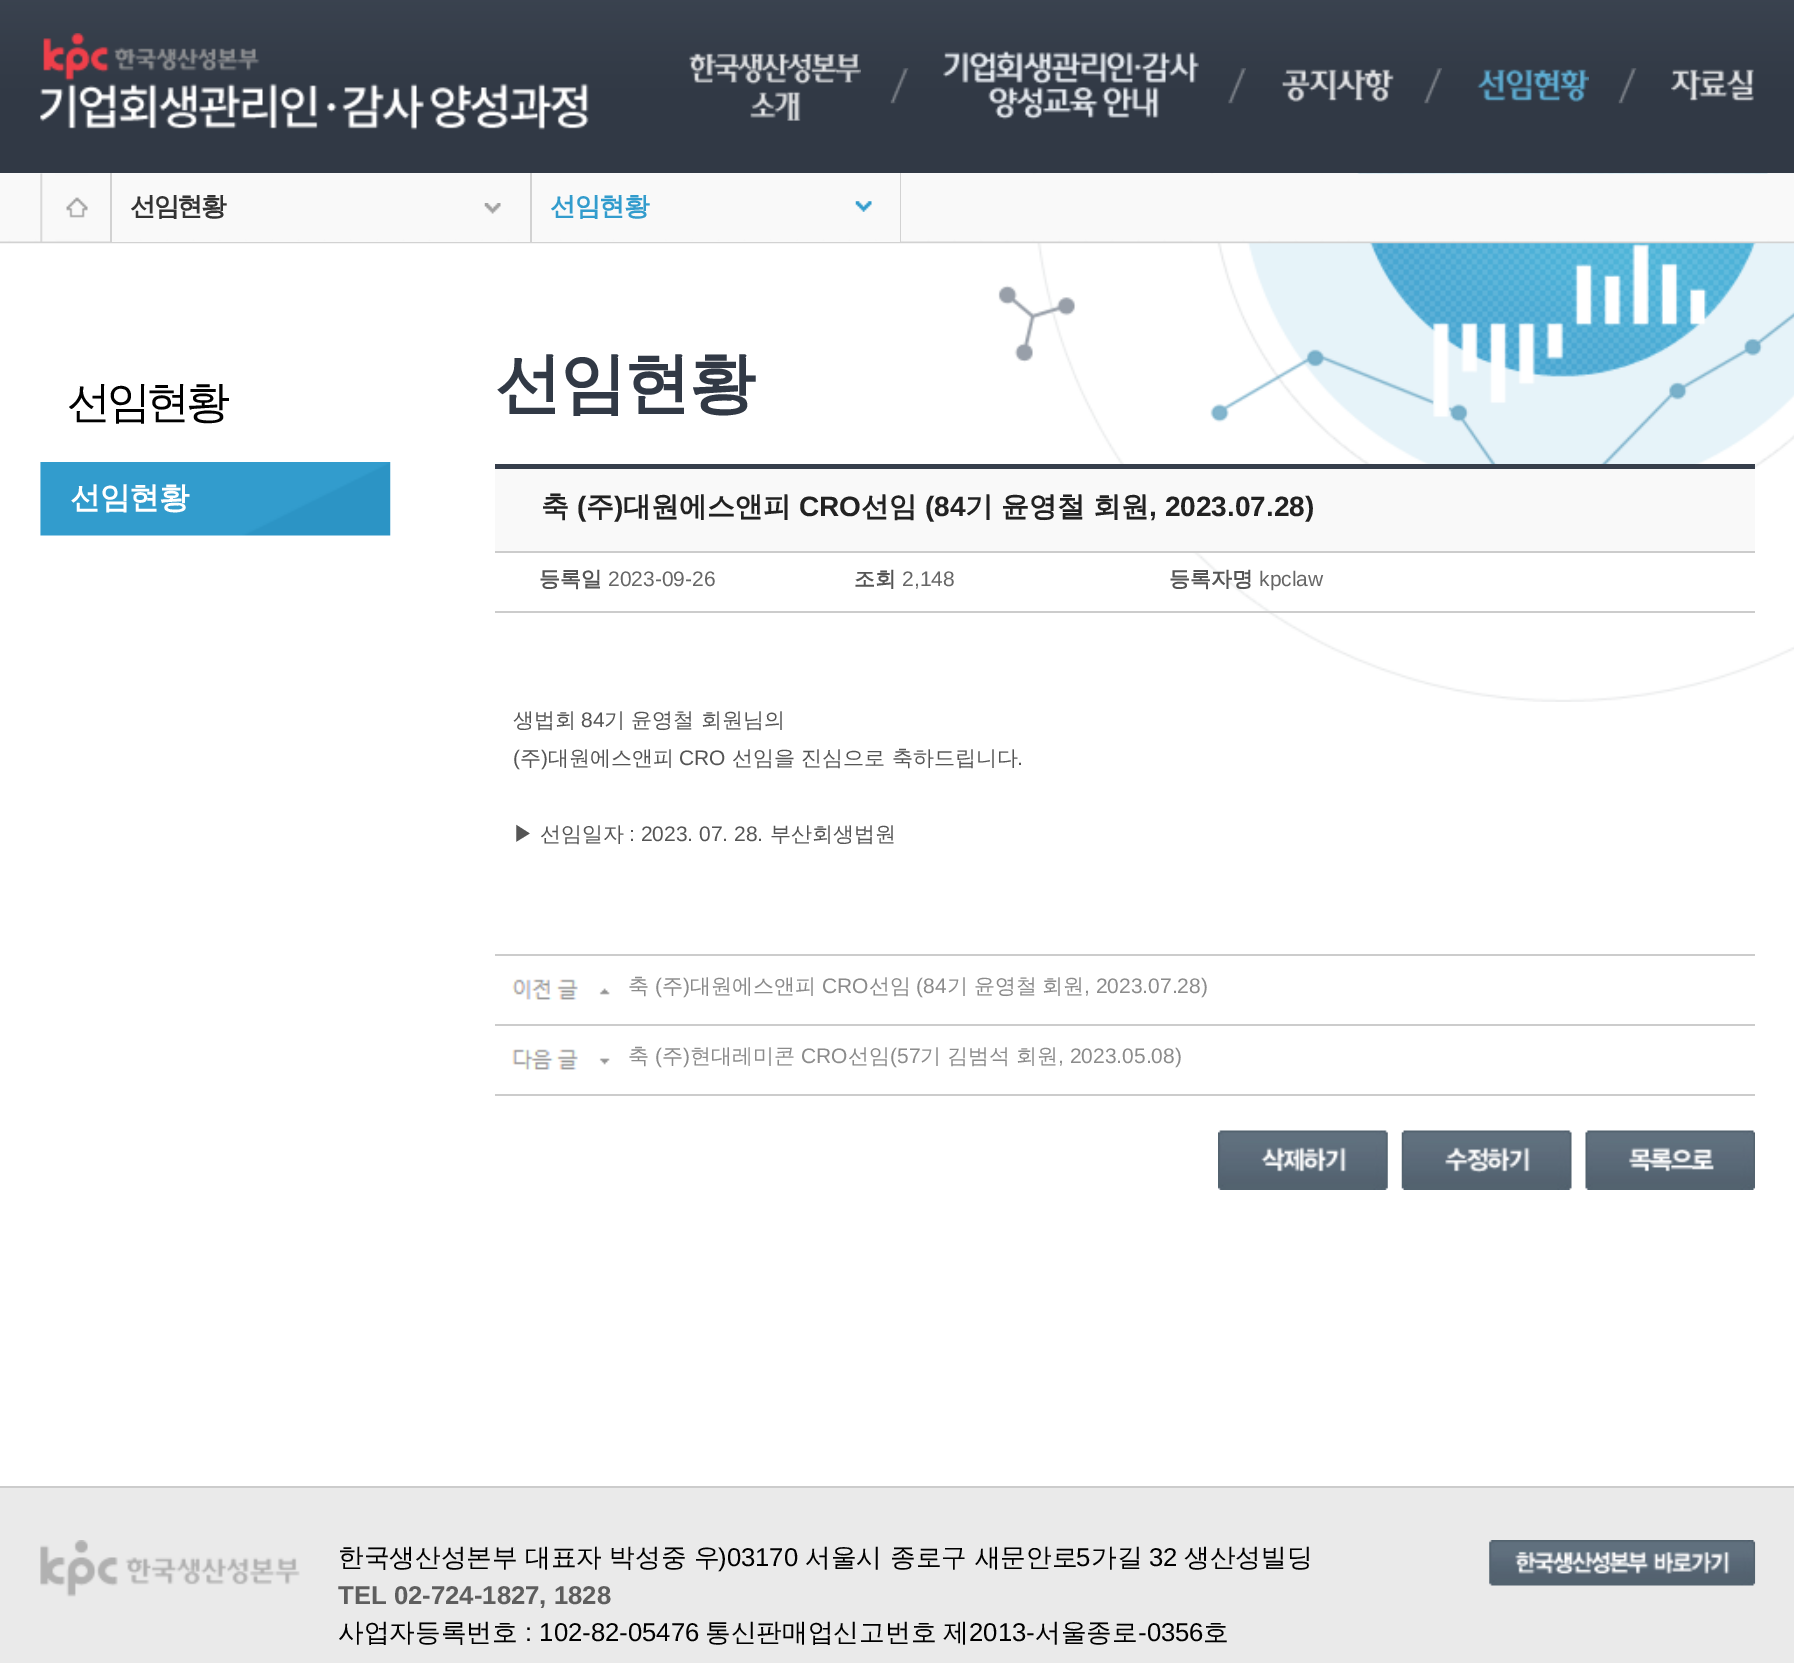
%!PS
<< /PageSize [1794 1663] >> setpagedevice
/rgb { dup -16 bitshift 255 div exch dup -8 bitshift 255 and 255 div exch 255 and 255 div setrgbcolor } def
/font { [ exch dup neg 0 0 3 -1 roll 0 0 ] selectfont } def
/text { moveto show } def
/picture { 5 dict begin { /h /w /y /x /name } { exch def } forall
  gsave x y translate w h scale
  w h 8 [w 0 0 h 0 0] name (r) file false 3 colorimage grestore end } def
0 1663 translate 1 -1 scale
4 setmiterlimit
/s1 { /WenQuanYiZenHei-Bold 28 font 16#222222 rgb } def
/s2 { /LiberationSans-Bold 28 font 16#222222 rgb } def
/s3 { /WenQuanYiZenHei-Bold 21 font 16#555555 rgb } def
/s4 { /LiberationSans-Regular 21 font 16#666666 rgb } def
/s5 { /WenQuanYiZenHei-Medium 21 font 16#555555 rgb } def
/s6 { /LiberationSans-Regular 21 font 16#555555 rgb } def
/s7 { /WenQuanYiZenHei-Medium 21 font 16#8B8B8B rgb } def
/s8 { /LiberationSans-Regular 21 font 16#8B8B8B rgb } def
/s9 { /LiberationSans-Regular 25.7 font 16#000000 rgb } def
/s10 { /WenQuanYiZenHei-Medium 25.7 font 16#000000 rgb } def
/s11 { /LiberationSans-Bold 25.7 font 16#5E5E5E rgb } def
16#EAEAEA rgb
0 0 1794 1663 rectfill
(pic1.raw) 0 0 1794 173 picture
(pic2.raw) 40 33 549 97 picture
(pic3.raw) 890 68 19 36 picture
(pic4.raw) 689 52 172 69 picture
(pic5.raw) 1228 68 18 36 picture
(pic6.raw) 943 50 256 70 picture
(pic7.raw) 1424 68 18 36 picture
(pic8.raw) 1281 68 113 34 picture
(pic3.raw) 1618 68 19 36 picture
(pic9.raw) 1477 69 112 33 picture
(pic10.raw) 1671 69 83 33 picture
16#FFFFFF rgb
0 173 1794 1313 rectfill
(pic15.raw) 998 173 796 529 picture
(pic11.raw) 0 173 1794 71 picture
(pic12.raw) 40 173 48 69 picture
16#D2D2D2 rgb
110 173 2 70 rectfill
16#F9F9F9 rgb
112 241 418 1 rectfill
(pic13.raw) 484 203 17 11 picture
/WenQuanYiZenHei-Bold 25.7 font
16#333333 rgb
130 215 moveto -2 0 (선임현황) ashow
16#D2D2D2 rgb
530 173 2 70 rectfill
16#F9F9F9 rgb
532 241 368 1 rectfill
16#D2D2D2 rgb
900 173 1 70 rectfill
(pic14.raw) 855 201 17 11 picture
16#329CCD rgb
550 215 moveto -1 0 (선임현황) ashow
/WenQuanYiZenHei-Medium 44 font
16#000000 rgb
67 417 moveto -4.5 0 (선임현황) ashow
(pic16.raw) 40 462 351 74 picture
/WenQuanYiZenHei-Bold 30.5 font
16#FFFFFF rgb
70 508 moveto -1 0 (선임현황) ashow
16#363E4B rgb
495 464 1260 5 rectfill
/WenQuanYiZenHei-Bold 66.5 font
16#313945 rgb
495 406 moveto -2 0 (선임현황) ashow
16#F9F9F9 rgb
495 469 1260 82 rectfill
16#CCCCCC rgb
495 551 1260 2 rectfill
s1
(축) 541 516 text
s2
(\() 577 516 text
s1
(주) 586 516 text
s2
(\)) 614 516 text
s1
(대원에스앤피) 623 516 text
s2
(CRO) 799 516 text
s1
(선임) 861 516 text
s2
(\(84) 925 516 text
s1
(기) 965 516 text
(윤영철) 1001 516 text
(회원) 1093 516 text
s2
(, 2023.07.28\)) 1149 516 text
16#CCCCCC rgb
495 611 1260 2 rectfill
s3
(등록일) 539 586 text
s4
(2023-09-26) 608 586 text
s3
(조회) 854 586 text
s4
(2,148) 902 586 text
s3
(등록자명) 1169 586 text
s4
(kpclaw) 1259 586 text
s5
(생법회) 513 727 text
s6
(84) 581 727 text
s5
(기 윤영철 회원님의) 604 727 text
s6
(\() 513 765 text
s5
(주) 520 765 text
s6
(\)) 541 765 text
s5
(대원에스앤피) 548 765 text
s6
(CRO) 679 765 text
s5
(선임을 진심으로 축하드립니다) 732 765 text
s6
(.) 1017 765 text
s5
(▶) 513 841 text
(선임일자) 540 841 text
s6
(: 2023. 07. 28.) 629 841 text
s5
(부산회생법원) 770 841 text
16#CCCCCC rgb
495 954 1260 2 rectfill
495 1024 1260 2 rectfill
(pic17.raw) 512 979 98 21 picture
s7
(축) 628 993 text
s8
(\() 655 993 text
s7
(주) 662 993 text
s8
(\)) 683 993 text
s7
(대원에스앤피) 690 993 text
s8
(CRO) 822 993 text
s7
(선임) 869 993 text
s8
(\(84) 916 993 text
s7
(기) 947 993 text
(윤영철) 974 993 text
(회원) 1042 993 text
s8
(, 2023.07.28\)) 1084 993 text
16#CCCCCC rgb
495 1094 1260 2 rectfill
(pic18.raw) 512 1049 98 21 picture
s7
(축) 628 1063 text
s8
(\() 655 1063 text
s7
(주) 662 1063 text
s8
(\)) 683 1063 text
s7
(현대레미콘) 690 1063 text
s8
(CRO) 801 1063 text
s7
(선임) 848 1063 text
s8
(\(57) 890 1063 text
s7
(기) 920 1063 text
(김범석) 947 1063 text
(회원) 1016 1063 text
s8
(, 2023.05.08\)) 1058 1063 text
(pic19.raw) 1218 1130 170 60 picture
(pic20.raw) 1401 1130 171 60 picture
(pic21.raw) 1585 1130 170 60 picture
16#CCCCCC rgb
0 1486 1794 2 rectfill
(pic22.raw) 40 1540 260 57 picture
/WenQuanYiZenHei-Medium 25.7 font
16#000000 rgb
338 1566 moveto -0.5 0 32 (한국생산성본부 대표자 박성중 우) widthshow
s9
(\)03170) 718 1566 text
s10
(서울시 종로구 새문안로) 805 1566 text
s9
(5) 1076 1566 text
s10
(가길) 1091 1566 text
s9
(32) 1149 1566 text
s10
(생산성빌딩) 1184 1566 text
s11
(TEL 02-724-1827, 1828) 338 1604 text
s10
(사업자등록번호) 338 1641 text
s9
(: 102-82-05476) 525 1641 text
/WenQuanYiZenHei-Medium 25.7 font
705 1641 moveto -0.5 0 32 (통신판매업신고번호 제) widthshow
s9
(2013-) 969 1641 text
s10
(서울종로) 1035 1641 text
s9
(-0356) 1138 1641 text
s10
(호) 1203 1641 text
(pic23.raw) 1489 1540 267 46 picture
showpage
